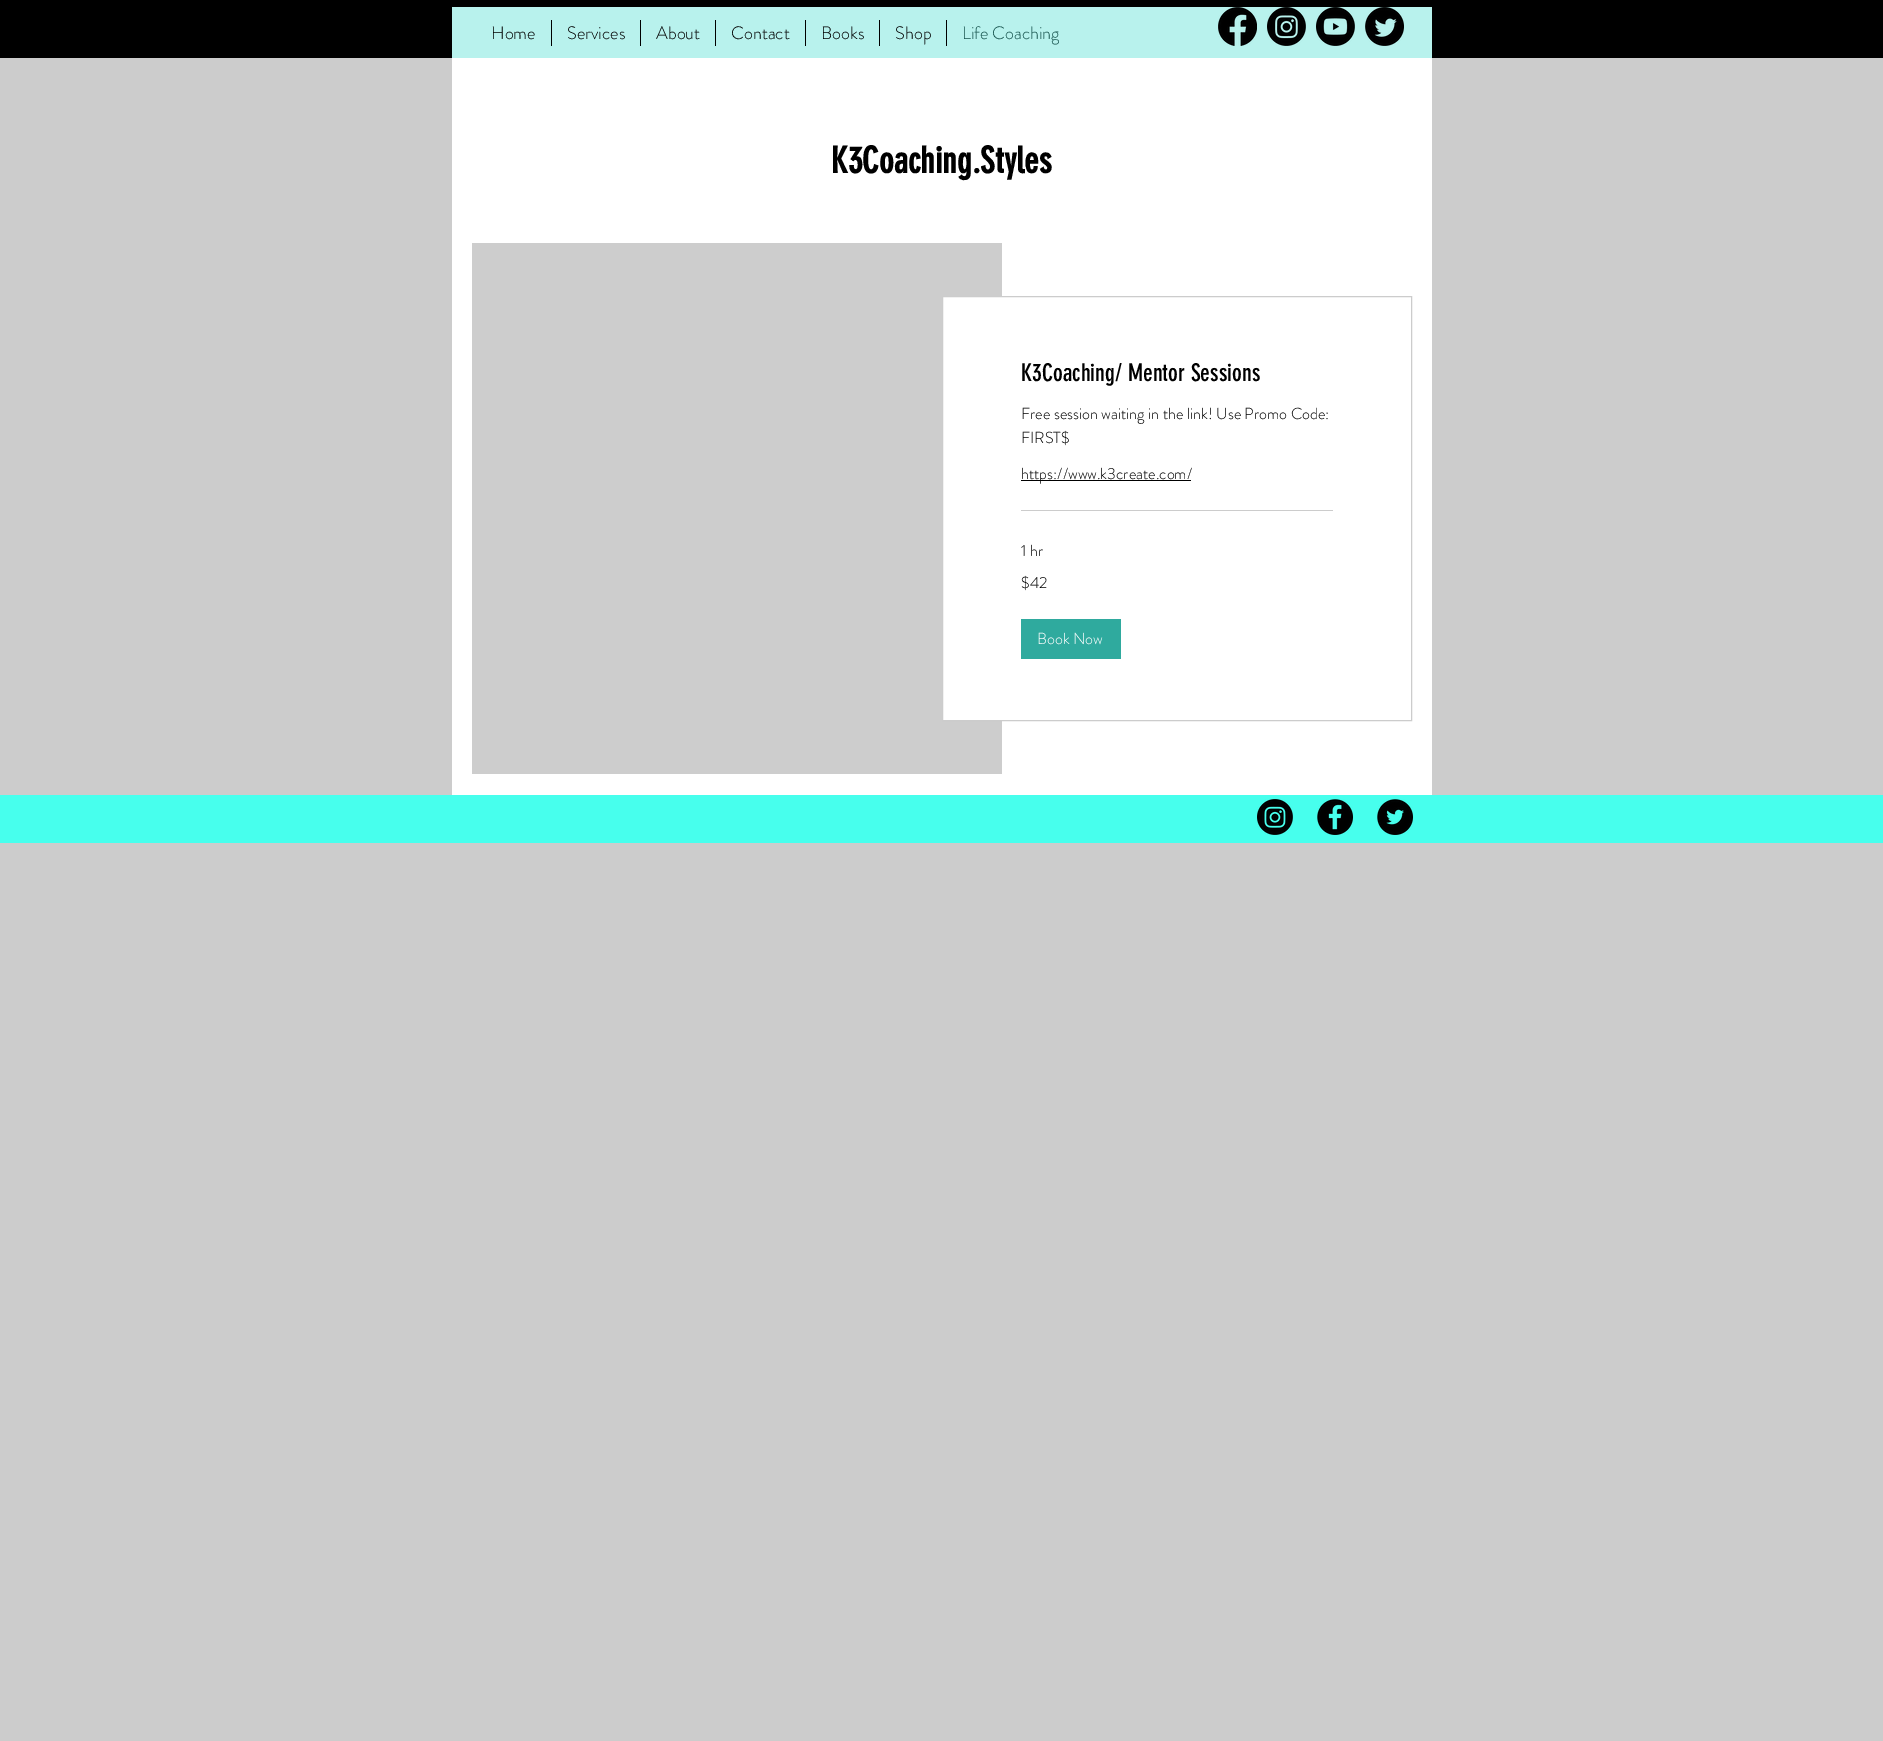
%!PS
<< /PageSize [1883 1741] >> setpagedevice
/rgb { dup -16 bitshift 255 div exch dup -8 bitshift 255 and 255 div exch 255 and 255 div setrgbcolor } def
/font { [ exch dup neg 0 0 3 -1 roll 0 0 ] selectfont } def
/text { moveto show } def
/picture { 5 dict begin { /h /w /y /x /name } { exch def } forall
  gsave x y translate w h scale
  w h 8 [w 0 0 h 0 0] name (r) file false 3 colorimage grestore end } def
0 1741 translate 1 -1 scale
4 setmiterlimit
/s1 { /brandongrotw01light-Light 18 font 16#000000 rgb } def
/s2 { /brandongrotw01light-Light 18 font 16#18554F rgb } def
/s3 { /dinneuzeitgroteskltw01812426-Bold 36 font 16#000000 rgb } def
/s4 { /dinneuzeitgroteskltw01812426-Regular 24 font 16#000000 rgb } def
/s5 { /brandongrotw01light-Light 16 font 16#000000 rgb } def
/s6 { /brandongrotw01light-Light 16 font 16#FFFFFF rgb } def
16#CCCCCC rgb
0 0 1883 1741 rectfill
16#000000 rgb
0 0 1883 58 rectfill
16#B8F2ED rgb
452 7 980 51 rectfill
(pic1.raw) 1218 7 39 39 picture
(pic2.raw) 1267 7 39 39 picture
(pic3.raw) 1316 7 39 39 picture
(pic4.raw) 1365 7 39 39 picture
s1
(Home) 491 39 text
551 20 1 26 rectfill
(Services) 567 39 text
640 20 1 26 rectfill
(About) 656 39 text
715 20 1 26 rectfill
(Contact) 731 39 text
805 20 1 26 rectfill
(Books) 821 39 text
879 20 1 26 rectfill
(Shop) 895 39 text
946 20 1 26 rectfill
s2
(Life Coaching) 962 39 text
16#FFFFFF rgb
452 58 980 737 rectfill
s3
(K3Coaching.Styles) 831 173 text
16#CDCDCD rgb
472 243 530 531 rectfill
16#FFFFFF rgb
943 297 59 423 rectfill
16#CCCCCC rgb
942.5 296.5 469 424 rectstroke
s4
(K3Coaching/ Mentor Sessions) 1021 381 text
s5
(Free session waiting in the link! Use Promo Code:) 1021 419 text
(FIRST$) 1021 443 text
1021 480 170 1 rectfill
(https://www.k3create.com/) 1021 479 text
16#CCCCCC rgb
1021 510 312 1 rectfill
s5
(1 hr) 1021 556 text
($42) 1021 588 text
16#2FAA9E rgb
1021 619 100 40 rectfill
s6
(Book Now) 1037 644 text
16#47FFED rgb
0 795 1883 48 rectfill
(pic5.raw) 1257 799 36 36 picture
(pic6.raw) 1317 799 36 36 picture
(pic7.raw) 1377 799 36 36 picture
showpage
